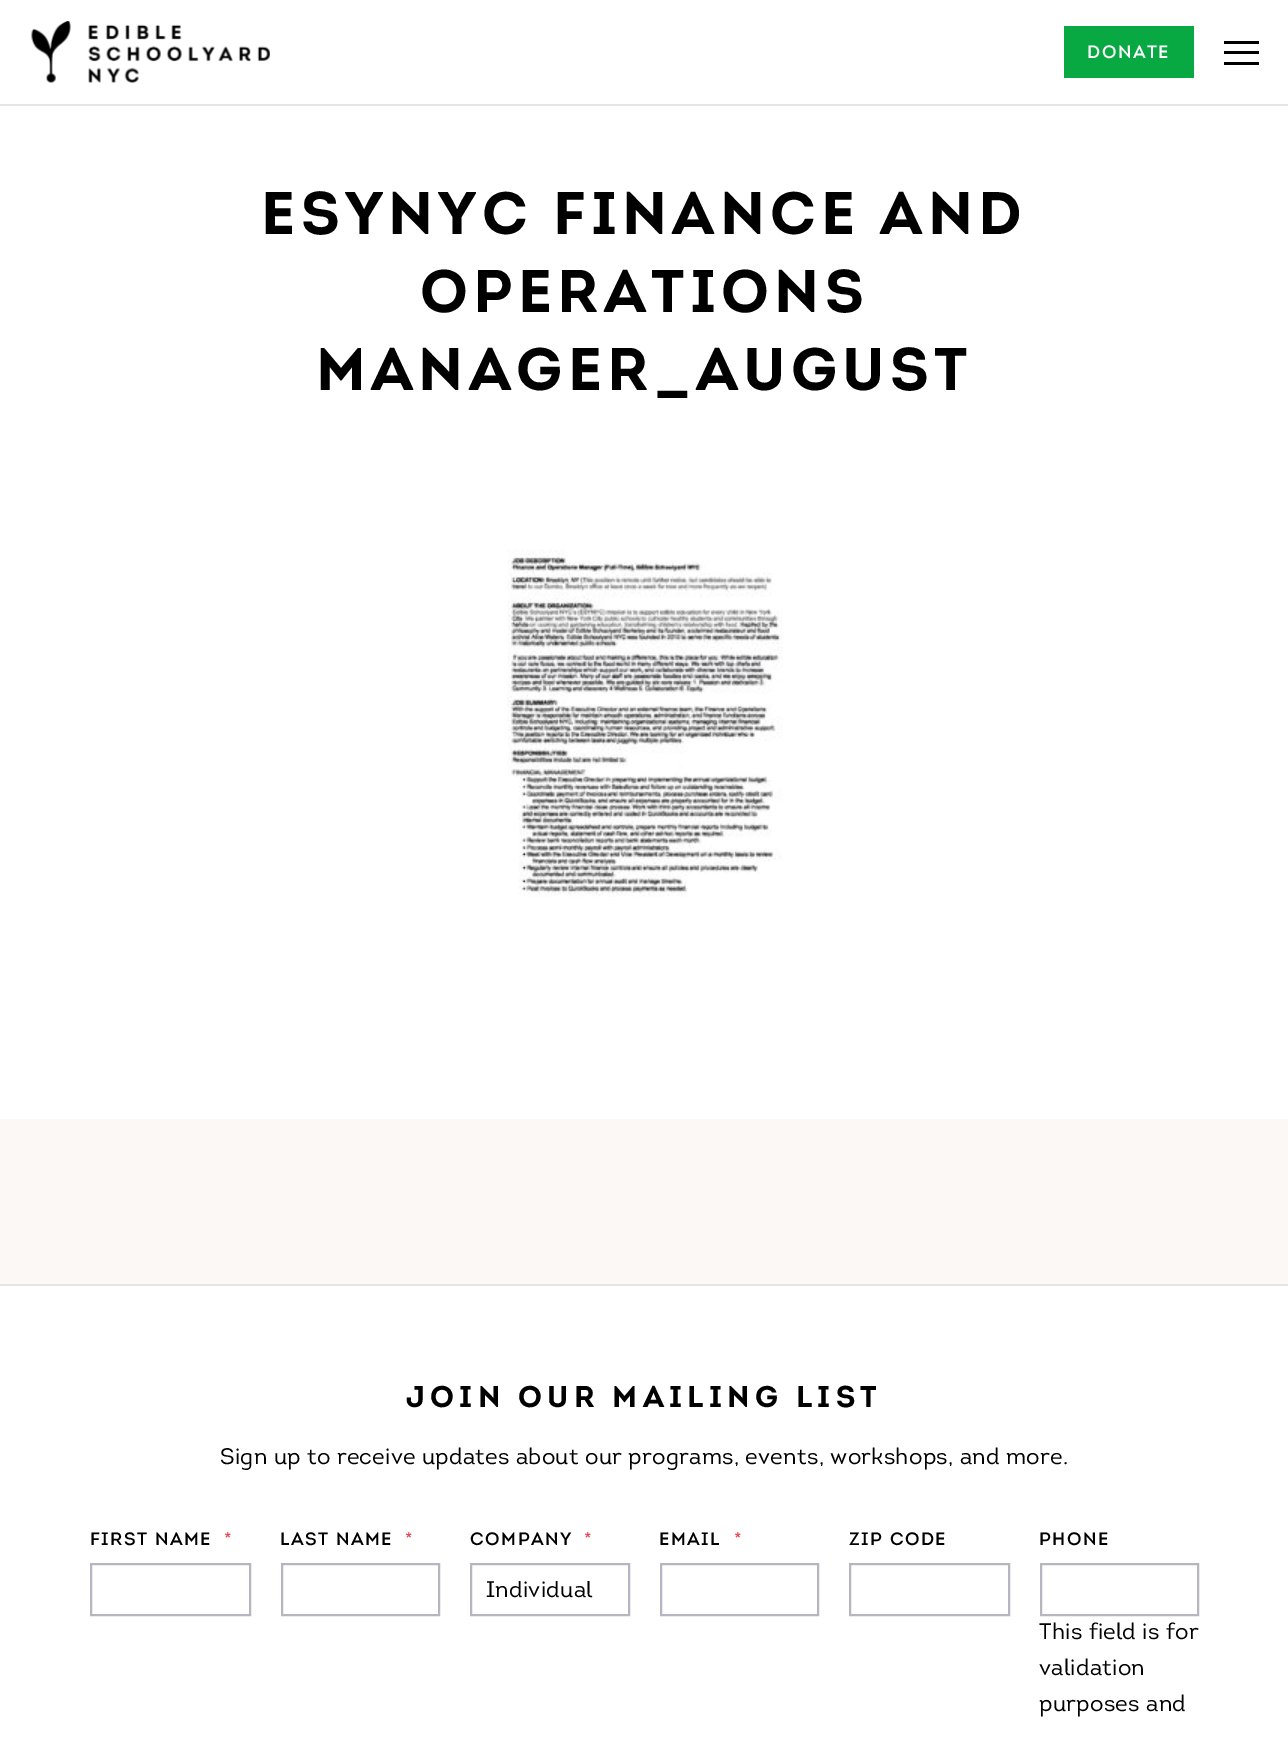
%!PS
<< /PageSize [1288 1739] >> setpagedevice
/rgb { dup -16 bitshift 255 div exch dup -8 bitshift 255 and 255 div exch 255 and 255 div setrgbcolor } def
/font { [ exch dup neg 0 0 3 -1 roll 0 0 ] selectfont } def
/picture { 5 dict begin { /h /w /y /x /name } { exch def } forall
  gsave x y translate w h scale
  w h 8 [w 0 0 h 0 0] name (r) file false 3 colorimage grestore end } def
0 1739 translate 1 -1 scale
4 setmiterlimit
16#FFFFFF rgb
0 0 1288 1739 rectfill
16#E4E4E4 rgb
0 104 1288 2 rectfill
(pic1.raw) 31 21 239 62 picture
16#08A842 rgb
1064 26 130 52 rectfill
/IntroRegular-Regular 18 font
16#FFFFFF rgb
1087 58 moveto 1.5 0 (DONATE) ashow
16#000000 rgb
1224 41 35 3 rectfill
1224 51 35 3 rectfill
1224 62 35 3 rectfill
/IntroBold-Bold 60 font
261 234 moveto 5.25 0 (ESYNYC FINANCE AND) ashow
420 312 moveto 5.25 0 (OPERATIONS) ashow
316 390 moveto 5.25 0 (MANAGER_AUGUST) ashow
(pic2.raw) 507 549 276 348 picture
16#FCF8F5 rgb
0 1119 1288 165 rectfill
16#E4E4E4 rgb
0 1284 1288 2 rectfill
/IntroBold-Bold 30 font
16#000000 rgb
406 1407 moveto 5.25 0 (JOIN OUR MAILING LIST) ashow
/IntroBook-Regular 22.5 font
220 1464 moveto 0.3 0 (Sign up to receive updates about our programs, events, workshops, and more.) ashow
/IntroRegular-Regular 18 font
90 1545 moveto 1.5 0 (FIRST NAME) ashow
16#ED4D5A rgb
224 1545 moveto 1.5 0 (*) ashow
16#B8B5C1 rgb
2 setlinewidth
91 1564 159 51 rectstroke
16#000000 rgb
280 1545 moveto 1.5 0 (LAST NAME) ashow
16#ED4D5A rgb
405 1545 moveto 1.5 0 (*) ashow
16#B8B5C1 rgb
282 1564 157 51 rectstroke
16#000000 rgb
470 1545 moveto 1.5 0 (COMPANY) ashow
16#ED4D5A rgb
584 1545 moveto 1.5 0 (*) ashow
16#B8B5C1 rgb
471 1564 158 51 rectstroke
gsave
486 1581 128 23 rectclip
/IntroBook-Regular 22.5 font
16#000000 rgb
486 1597 moveto 0.3 0 (Individual) ashow
grestore
16#000000 rgb
659 1545 moveto 1.5 0 (EMAIL) ashow
16#ED4D5A rgb
734 1545 moveto 1.5 0 (*) ashow
16#B8B5C1 rgb
661 1564 157 51 rectstroke
16#000000 rgb
849 1545 moveto 1.5 0 (ZIP CODE) ashow
16#B8B5C1 rgb
850 1564 159 51 rectstroke
16#000000 rgb
1039 1545 moveto 1.5 0 (PHONE) ashow
16#B8B5C1 rgb
1041 1564 157 51 rectstroke
/IntroBook-Regular 22.5 font
16#000000 rgb
1039 1639 moveto 0.3 0 (This field is for) ashow
1039 1675 moveto 0.3 0 (validation) ashow
1039 1711 moveto 0.3 0 (purposes and) ashow
showpage
